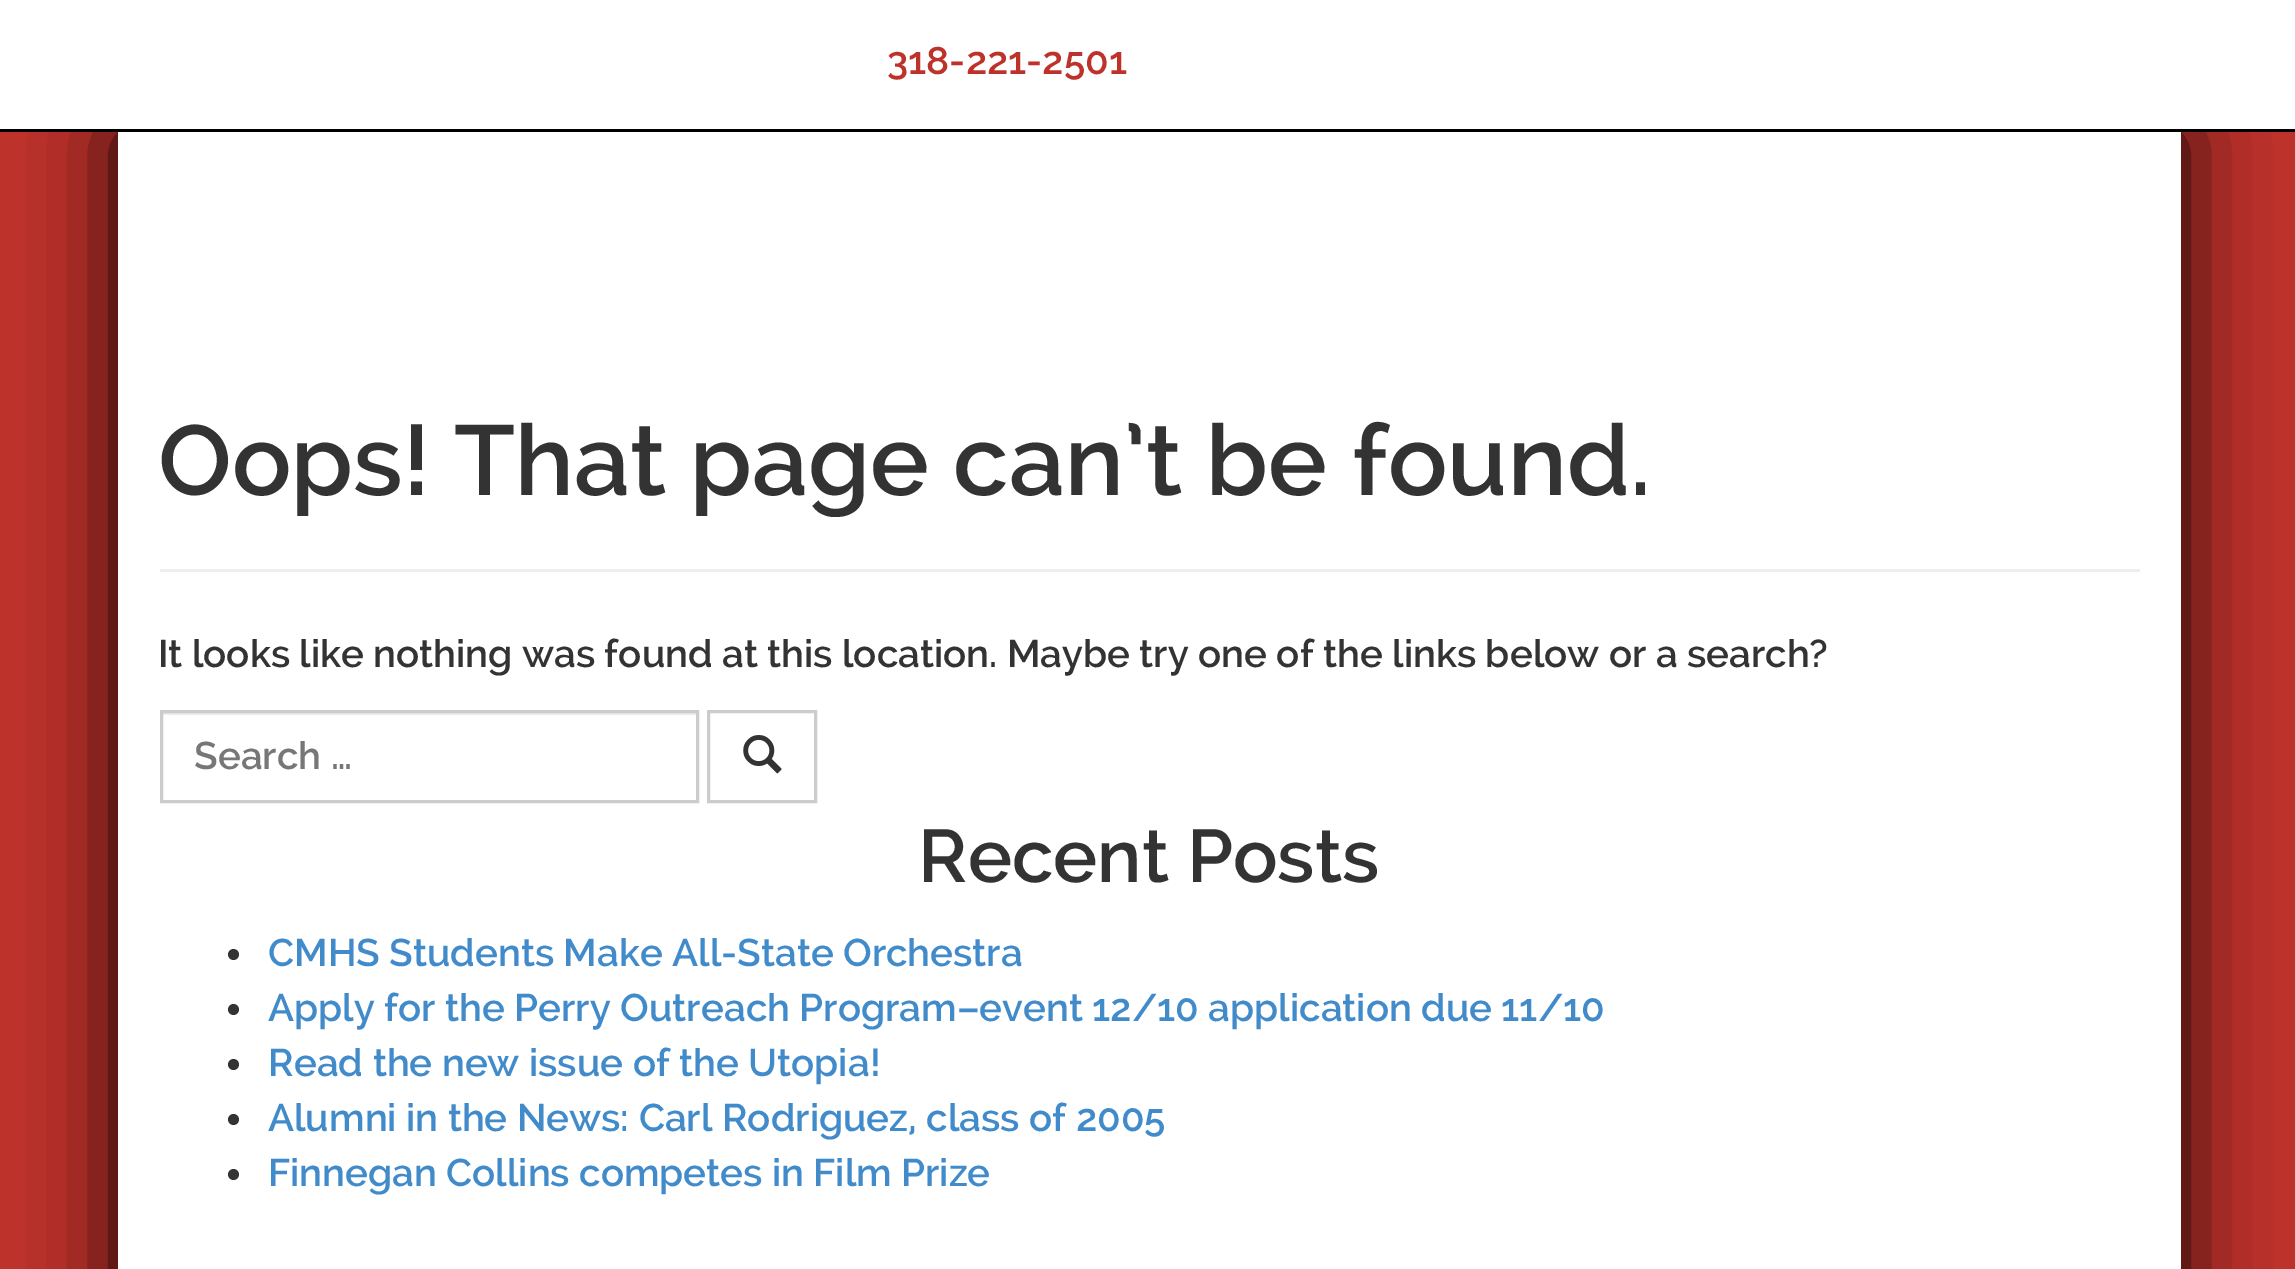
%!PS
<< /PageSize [2295 1269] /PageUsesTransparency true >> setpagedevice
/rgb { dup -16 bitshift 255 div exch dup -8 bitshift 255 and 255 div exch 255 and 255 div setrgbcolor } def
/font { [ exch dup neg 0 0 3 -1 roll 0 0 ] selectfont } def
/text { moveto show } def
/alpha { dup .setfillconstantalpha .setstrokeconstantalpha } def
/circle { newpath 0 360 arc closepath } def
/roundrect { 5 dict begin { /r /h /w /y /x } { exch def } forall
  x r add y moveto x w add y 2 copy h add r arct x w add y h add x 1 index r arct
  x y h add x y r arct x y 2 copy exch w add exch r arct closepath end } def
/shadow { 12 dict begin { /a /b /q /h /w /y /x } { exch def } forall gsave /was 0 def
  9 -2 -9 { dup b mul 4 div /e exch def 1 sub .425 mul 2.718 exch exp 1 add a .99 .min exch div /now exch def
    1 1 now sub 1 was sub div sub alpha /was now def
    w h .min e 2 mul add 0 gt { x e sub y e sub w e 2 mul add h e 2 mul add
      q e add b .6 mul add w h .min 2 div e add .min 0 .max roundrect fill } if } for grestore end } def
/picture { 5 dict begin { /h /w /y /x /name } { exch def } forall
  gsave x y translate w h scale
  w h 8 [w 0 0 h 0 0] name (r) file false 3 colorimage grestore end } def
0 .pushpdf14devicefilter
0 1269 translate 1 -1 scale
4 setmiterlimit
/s1 { /Raleway-SemiBold 38.5 font 16#BD322A rgb } def
/s2 { /Raleway-SemiBold 99 font 16#333333 rgb } def
/s3 { /Raleway-SemiBold 38.5 font 16#333333 rgb } def
/s4 { /Raleway-SemiBold 38.5 font 16#777777 rgb } def
/s5 { /Raleway-SemiBold 74.25 font 16#333333 rgb } def
/s6 { /Raleway-SemiBold 38.5 font 16#428BCA rgb } def
16#BD322A rgb
0 0 2295 1269 rectfill
16#000000 rgb
118 132 2063 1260 0 41 1 shadow
16#FFFFFF rgb
0 0 2295 129 rectfill
16#000000 rgb
0 129 2295 3 rectfill
s1
(318-221-2501) 887 74 text
16#FFFFFF rgb
118 132 2063 1137 rectfill
16#EEEEEE rgb
160 569 1980 3 rectfill
s2
(Oops! That page can’t be found.) 158 495 text
s3
(It looks like nothing was found at this location. Maybe try one of the links below or a search?) 158 667 text
16#ECECEC rgb
162 713 534 2 rectfill
16#CCCCCC rgb
3 setlinewidth
161.5 711.5 536 90 rectstroke
s4
(Search …) 194 769 text
16#CCCCCC rgb
708.5 711.5 107 90 rectstroke
(pic1.raw) 743 735 39 39 picture
s5
(Recent Posts) 918 882 text
233.5 954.5 5.5 circle fill
s6
(CMHS Students Make All-State Orchestra) 268 966 text
16#333333 rgb
233.5 1009.5 5.5 circle fill
s6
(Apply for the Perry Outreach Program–event 12/10 application due 11/10) 268 1021 text
16#333333 rgb
233.5 1064.5 5.5 circle fill
s6
(Read the new issue of the Utopia!) 268 1076 text
16#333333 rgb
233.5 1119.5 5.5 circle fill
s6
(Alumni in the News: Carl Rodriguez, class of 2005) 268 1131 text
16#333333 rgb
233.5 1174.5 5.5 circle fill
s6
(Finnegan Collins competes in Film Prize) 268 1186 text
.poppdf14devicefilter showpage
